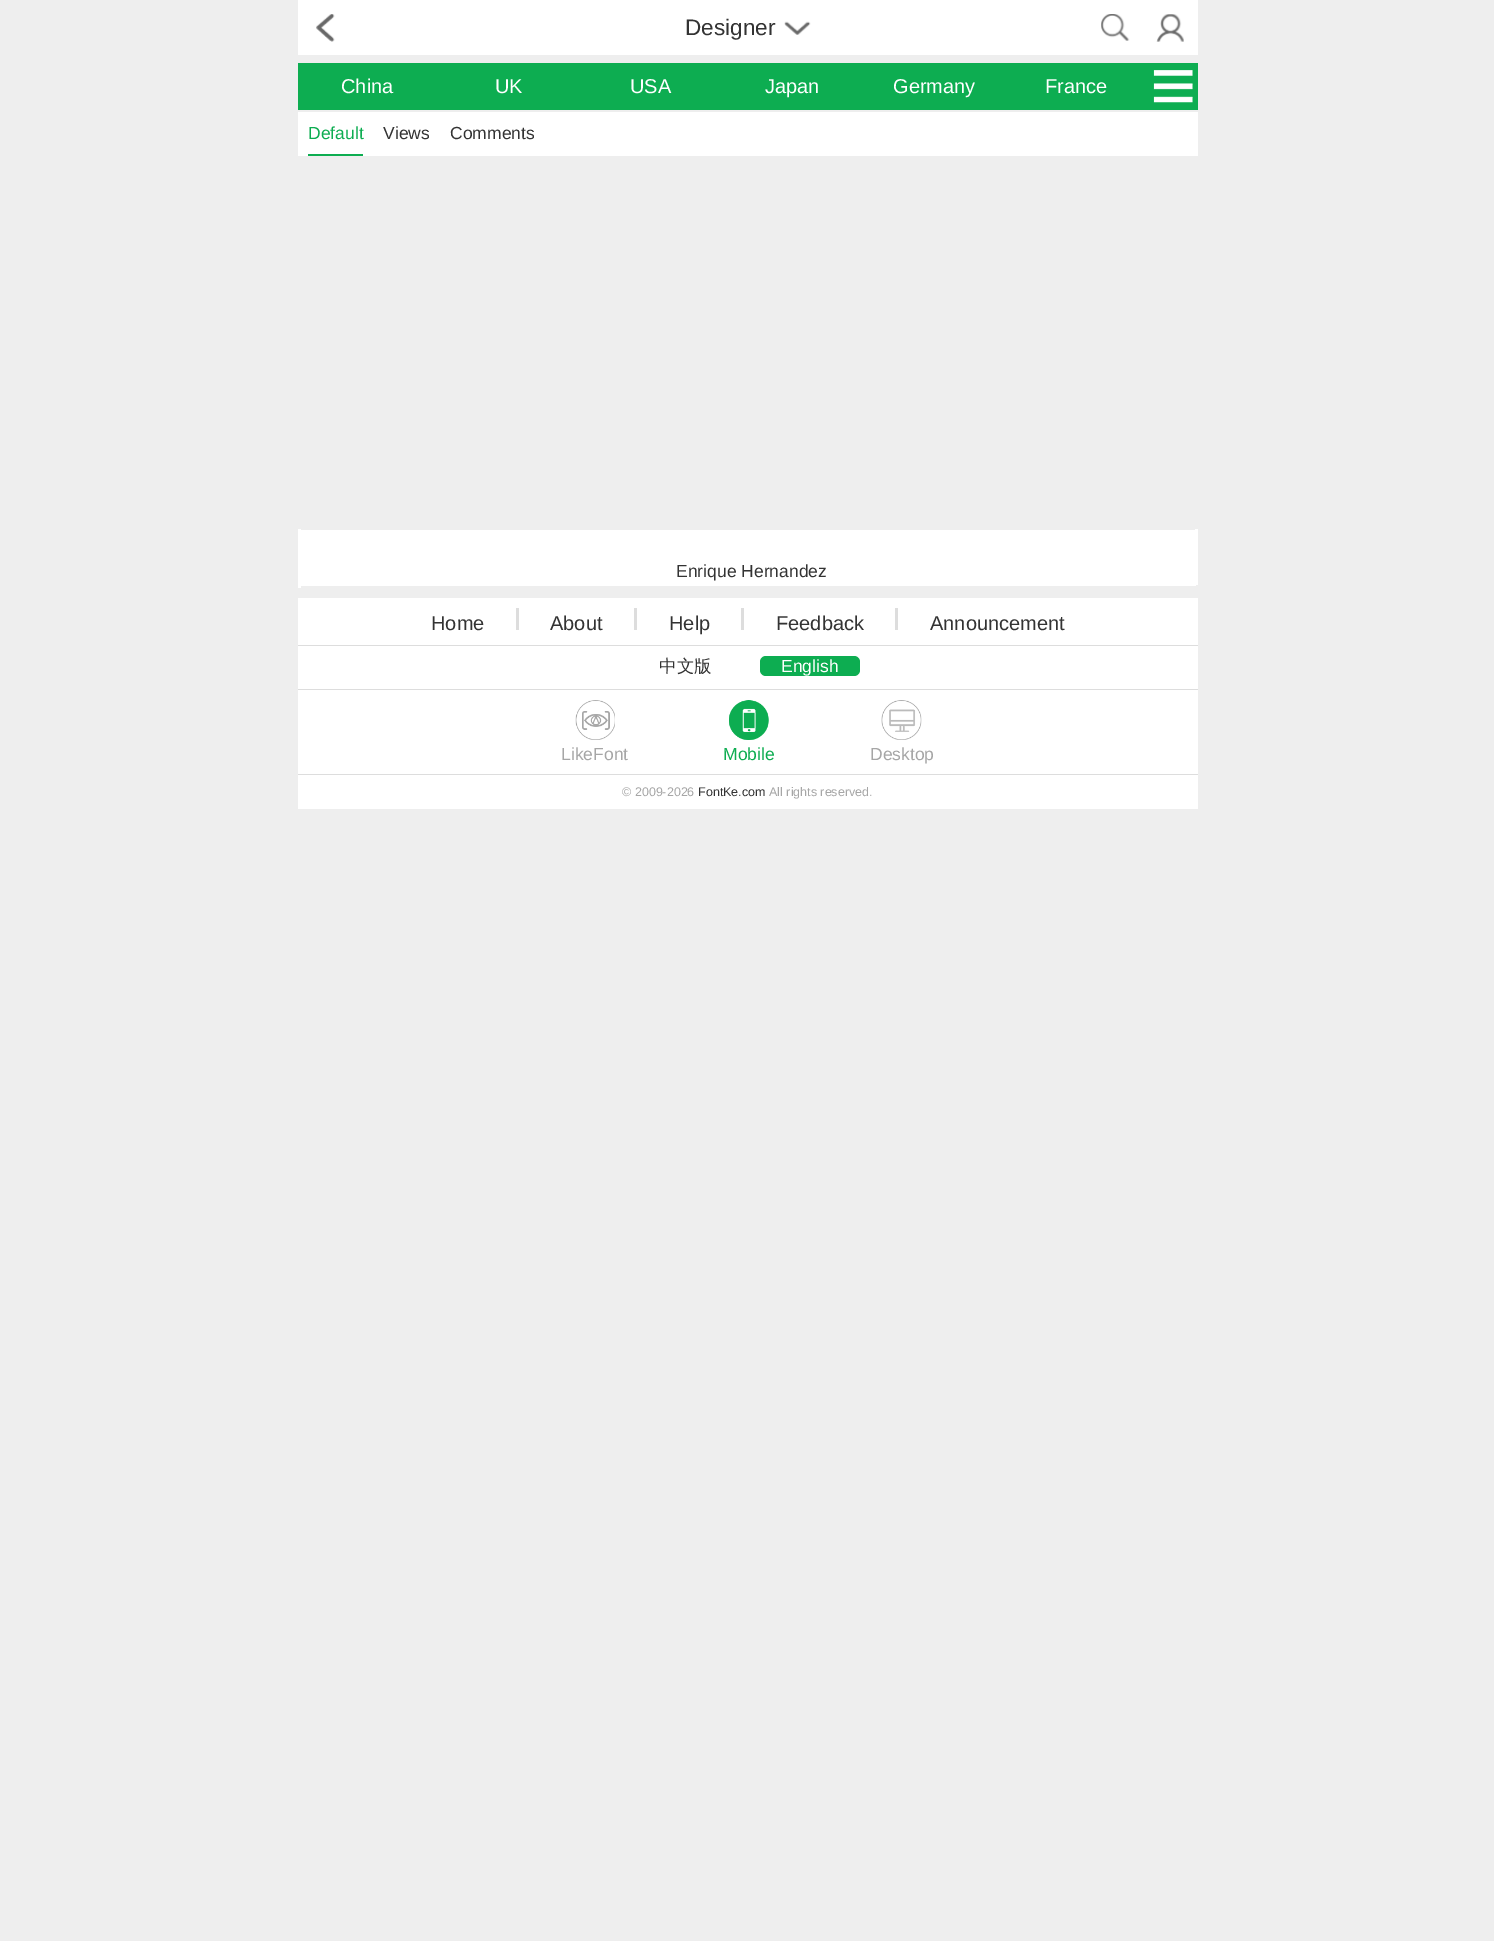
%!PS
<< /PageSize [1494 1941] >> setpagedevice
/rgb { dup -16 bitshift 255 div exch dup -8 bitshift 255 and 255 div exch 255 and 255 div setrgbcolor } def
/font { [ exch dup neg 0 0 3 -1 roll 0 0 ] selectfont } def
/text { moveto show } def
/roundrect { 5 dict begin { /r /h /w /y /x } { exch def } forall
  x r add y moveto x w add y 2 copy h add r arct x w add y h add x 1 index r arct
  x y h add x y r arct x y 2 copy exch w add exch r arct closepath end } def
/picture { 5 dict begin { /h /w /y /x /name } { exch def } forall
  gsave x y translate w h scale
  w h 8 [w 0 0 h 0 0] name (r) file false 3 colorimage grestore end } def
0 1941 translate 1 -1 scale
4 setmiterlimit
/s1 { /LiberationSans-Regular 22.5 font 16#333333 rgb } def
/s2 { /LiberationSans-Regular 20 font 16#FFFFFF rgb } def
/s3 { /LiberationSans-Regular 17.5 font 16#0DAD51 rgb } def
/s4 { /LiberationSans-Regular 17.5 font 16#333333 rgb } def
/s5 { /LiberationSans-Regular 20 font 16#333333 rgb } def
/s6 { /WenQuanYiZenHei-Medium 17.5 font 16#333333 rgb } def
/s7 { /LiberationSans-Regular 17.5 font 16#FFFFFF rgb } def
/s8 { /LiberationSans-Regular 17.5 font 16#A6A6A6 rgb } def
/s9 { /LiberationSans-Regular 12.5 font 16#A6A6A6 rgb } def
/s10 { /LiberationSans-Regular 12.5 font 16#333333 rgb } def
16#EEEEEE rgb
0 0 1494 1941 rectfill
16#FFFFFF rgb
298 0 900 55 rectfill
(pic1.raw) 316 14 19 28 picture
s1
(Designer) 685 35 text
(pic2.raw) 784 21 27 14 picture
(pic3.raw) 1101 14 29 27 picture
(pic4.raw) 1156 14 28 28 picture
16#0DAD51 rgb
298 63 900 47 rectfill
s2
(China) 341 93 text
(UK) 495 93 text
(USA) 630 93 text
(Japan) 765 93 text
(Germany) 893 93 text
(France) 1045 93 text
(pic5.raw) 1153 70 40 33 picture
298 112 900 44 rectfill
16#0DAD51 rgb
308 154 55 2 rectfill
s3
(Default) 308 139 text
s4
(Views) 383 139 text
(Comments) 450 139 text
16#FFFFFF rgb
1195 529 3 59 rectfill
16#EEEEEE rgb
1195 585 3 3 rectfill
16#FFFFFF rgb
298 529 3 59 rectfill
301 530 895 56 rectfill
s4
(Enrique Hernandez) 676 577 text
16#FFFFFF rgb
298 598 900 211 rectfill
16#DDDDDD rgb
298 645 900 1 rectfill
s5
(Home) 431 630 text
16#DDDDDD rgb
516 608 3 22 rectfill
s5
(About) 550 630 text
16#DDDDDD rgb
634 608 3 22 rectfill
s5
(Help) 669 630 text
16#DDDDDD rgb
741 608 3 22 rectfill
s5
(Feedback) 776 630 text
16#DDDDDD rgb
895 608 3 22 rectfill
s5
(Announcement) 930 630 text
16#DDDDDD rgb
298 689 900 1 rectfill
s6
(中文版) 659 672 text
16#0DAD51 rgb
760 656 100 20 6 roundrect fill
s7
(English) 781 672 text
16#DDDDDD rgb
298 774 900 1 rectfill
(pic6.raw) 575 700 40 40 picture
s8
(LikeFont) 561 760 text
(pic7.raw) 729 700 40 40 picture
s3
(Mobile) 723 760 text
(pic8.raw) 881 700 41 40 picture
s8
(Desktop) 870 760 text
s9
(© 2009-2026) 622 796 text
s10
(FontKe.com) 698 796 text
s9
(All rights reserved.) 769 796 text
showpage
